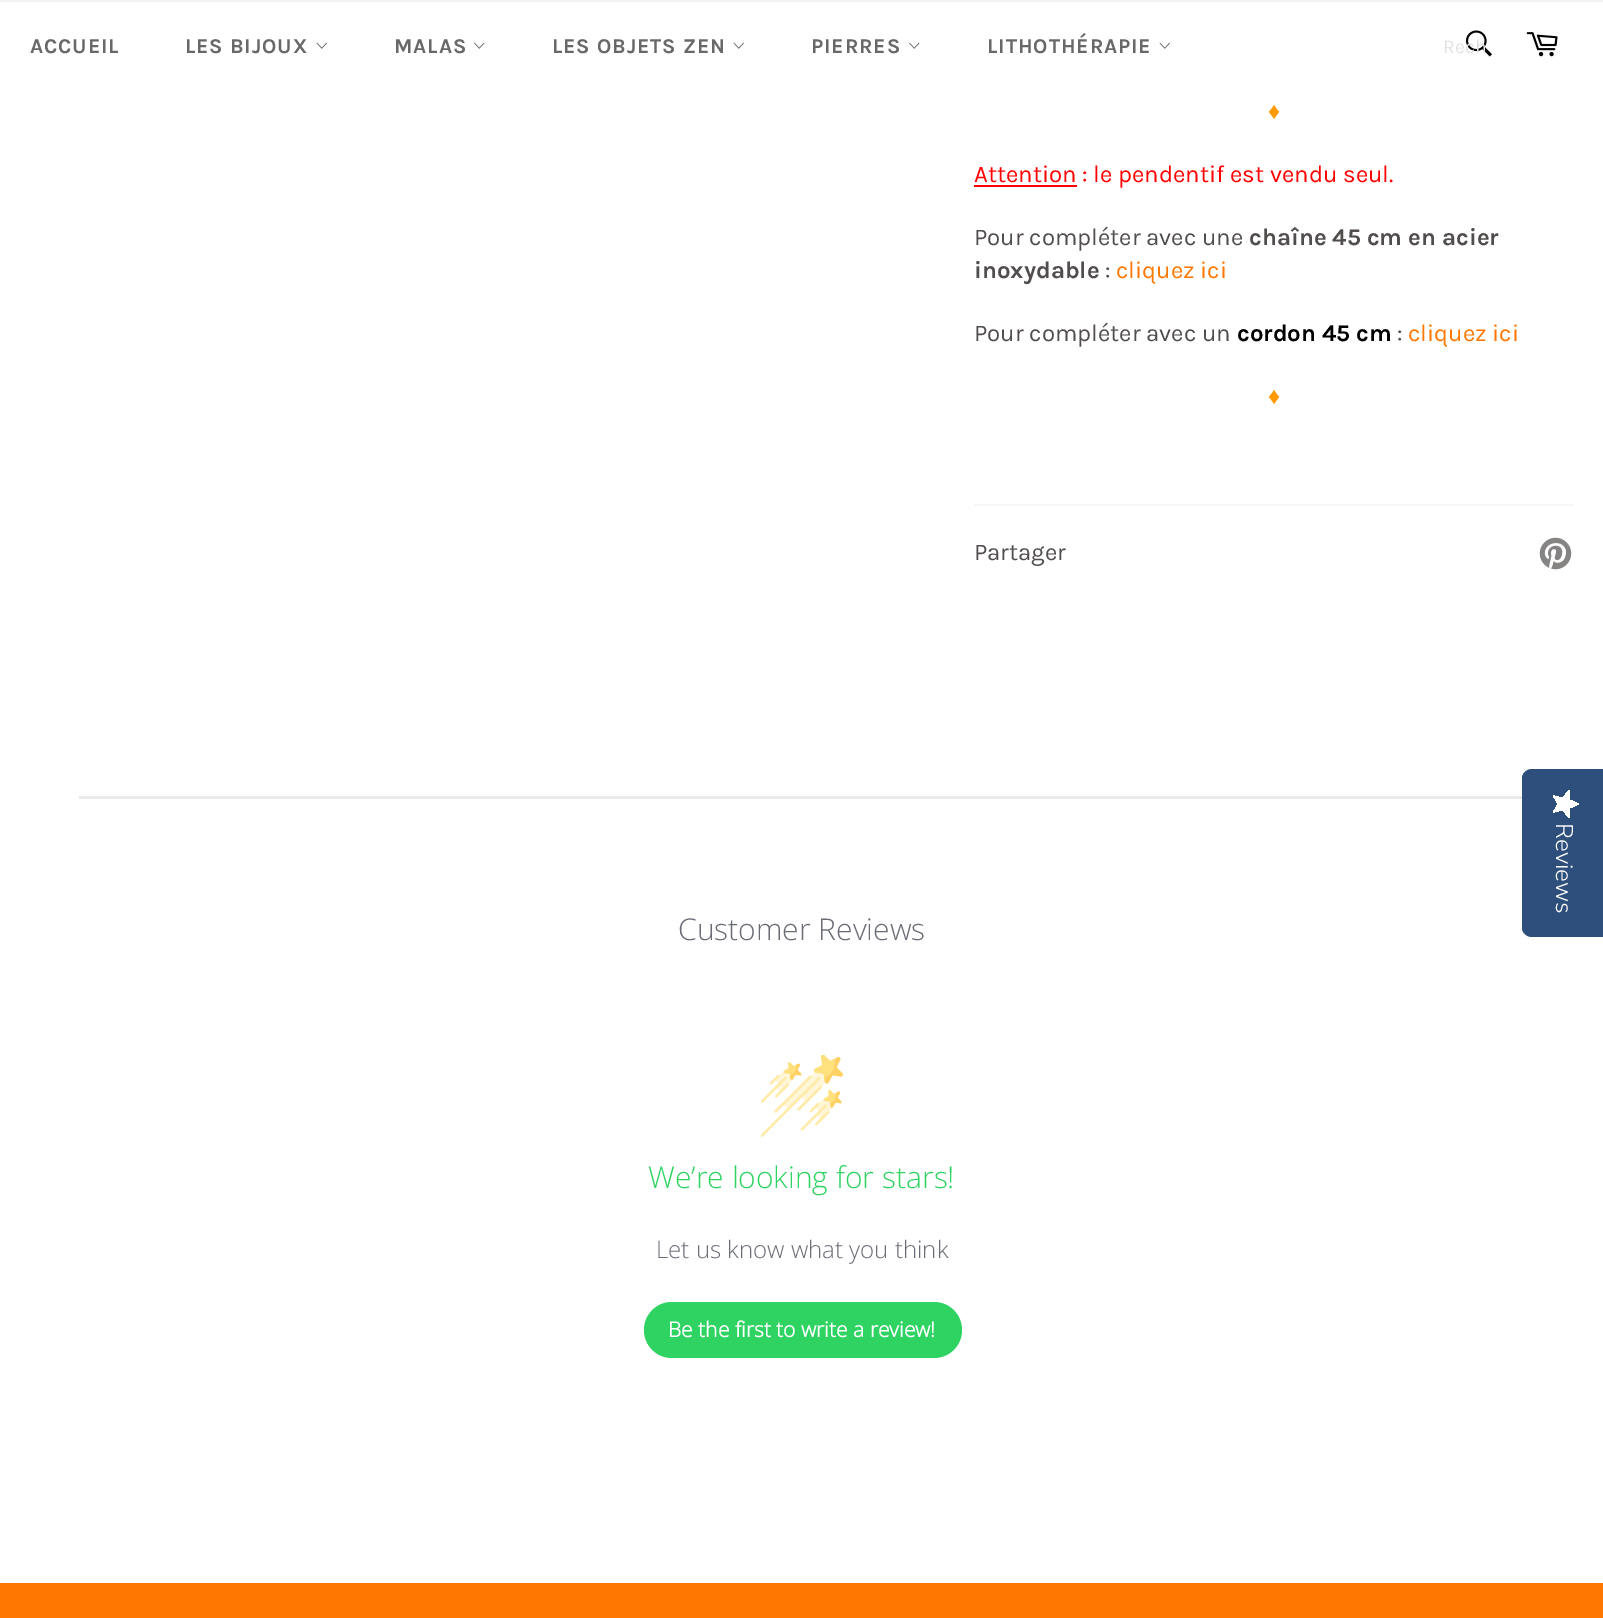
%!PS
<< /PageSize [1603 1618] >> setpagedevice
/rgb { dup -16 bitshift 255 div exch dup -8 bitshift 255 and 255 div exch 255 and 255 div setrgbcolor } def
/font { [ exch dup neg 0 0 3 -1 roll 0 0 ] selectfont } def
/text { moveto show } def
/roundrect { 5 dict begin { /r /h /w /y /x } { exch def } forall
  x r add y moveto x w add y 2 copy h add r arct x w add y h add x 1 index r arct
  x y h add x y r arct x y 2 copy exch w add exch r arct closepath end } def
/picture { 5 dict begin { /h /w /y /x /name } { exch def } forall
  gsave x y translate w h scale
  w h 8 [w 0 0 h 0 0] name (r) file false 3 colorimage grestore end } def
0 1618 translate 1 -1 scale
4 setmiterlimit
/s1 { /Karla-Regular 19.5 font 16#E2E2E2 rgb } def
/s2 { /LiberationSans-Regular 24 font 16#FF9900 rgb } def
/s3 { /Karla-Regular 24 font 16#FF0000 rgb } def
/s4 { /Karla-Regular 24 font 16#514D4D rgb } def
/s5 { /Karla-Bold 24 font 16#514D4D rgb } def
/s6 { /Karla-Regular 24 font 16#FF7700 rgb } def
/s7 { /Karla-Bold 24 font 16#000000 rgb } def
/s8 { /OpenSans-Light 30 font 16#6B6D76 rgb } def
/s9 { /OpenSans-Light 30 font 16#2ED362 rgb } def
/s10 { /OpenSans-Light 24 font 16#6B6D76 rgb } def
/s11 { /OpenSans-Bold 21 font 16#FFFFFF rgb } def
16#FFFFFF rgb
0 0 1603 1618 rectfill
16#F2F2F2 rgb
0 0 1603 2 rectfill
/Karla-Bold 21 font
16#686868 rgb
30 53 moveto 0.9 0 (ACCUEIL) ashow
185 53 moveto 0.9 0 (LES BIJOUX) ashow
(pic1.raw) 316 42 11 7 picture
394 53 moveto 0.9 0 (MALAS) ashow
(pic2.raw) 474 42 11 7 picture
552 53 moveto 0.9 0 (LES OBJETS ZEN) ashow
(pic1.raw) 733 42 11 7 picture
811 53 moveto 0.9 0 (PIERRES) ashow
(pic2.raw) 909 42 11 7 picture
987 53 moveto 0.9 0 (LITHOTHÉRAPIE) ashow
(pic1.raw) 1159 42 11 7 picture
(pic3.raw) 1465 30 27 27 picture
s1
(Rech) 1443 53 text
(pic4.raw) 1526 32 32 25 picture
s2
(♦) 1268 119 text
16#FF0000 rgb
974 185 103 2 rectfill
s3
(Attention : le pendentif est vendu seul.) 974 182 text
s4
(Pour compléter avec une) 974 245 text
s5
(chaîne 45 cm en acier) 1249 245 text
(inoxydable) 974 278 text
s4
(:) 1105 278 text
s6
(cliquez ici) 1116 278 text
s4
(Pour compléter avec un) 974 341 text
s7
(cordon 45 cm) 1237 341 text
s4
(:) 1397 341 text
s6
(cliquez ici) 1408 341 text
s2
(♦) 1268 404 text
16#F7F7F7 rgb
974 504 600 2 rectfill
s4
(Partager) 974 560 text
(pic5.raw) 1539 537 33 33 picture
16#EAEAEA rgb
79 796 1445 3 rectfill
s8
(Customer Reviews) 678 940 text
(pic6.raw) 761 1055 82 82 picture
s9
(We’re looking for stars!) 648 1188 text
s10
(Let us know what you think) 656 1258 text
16#2ED362 rgb
644 1302 318 56 28 roundrect fill
s11
(Be the first to write a review!) 668 1337 text
16#FF7700 rgb
0 1583 1603 35 rectfill
16#2E4F7C rgb
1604 769 moveto 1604 937 lineto 1532 937 lineto 1527 937 1522 933 1522 928 curveto 1522 778 lineto 1522 773 1527 769 1532 769 curveto closepath fill
gsave 1558 804 moveto 1553 812.5 lineto 1562.5 810 lineto 1569 817.5 lineto 1570 808 lineto 1579 804 lineto 1570 800 lineto 1569 790.5 lineto 1562.5 798 lineto 1553 795.5 lineto closepath clip newpath
<< /ShadingType 2 /ColorSpace /DeviceRGB /Coords [1579 790 1579 817] /Extend [true true] /Function << /FunctionType 2 /Domain [0 1] /C0 [1 1 1] /C1 [1 1 1] /N 1 >> >> shfill grestore
/NunitoSans-Light 24 font
16#FFFFFF rgb
gsave 1556 823 translate 90 rotate 0 0 moveto (Reviews) show grestore
showpage
